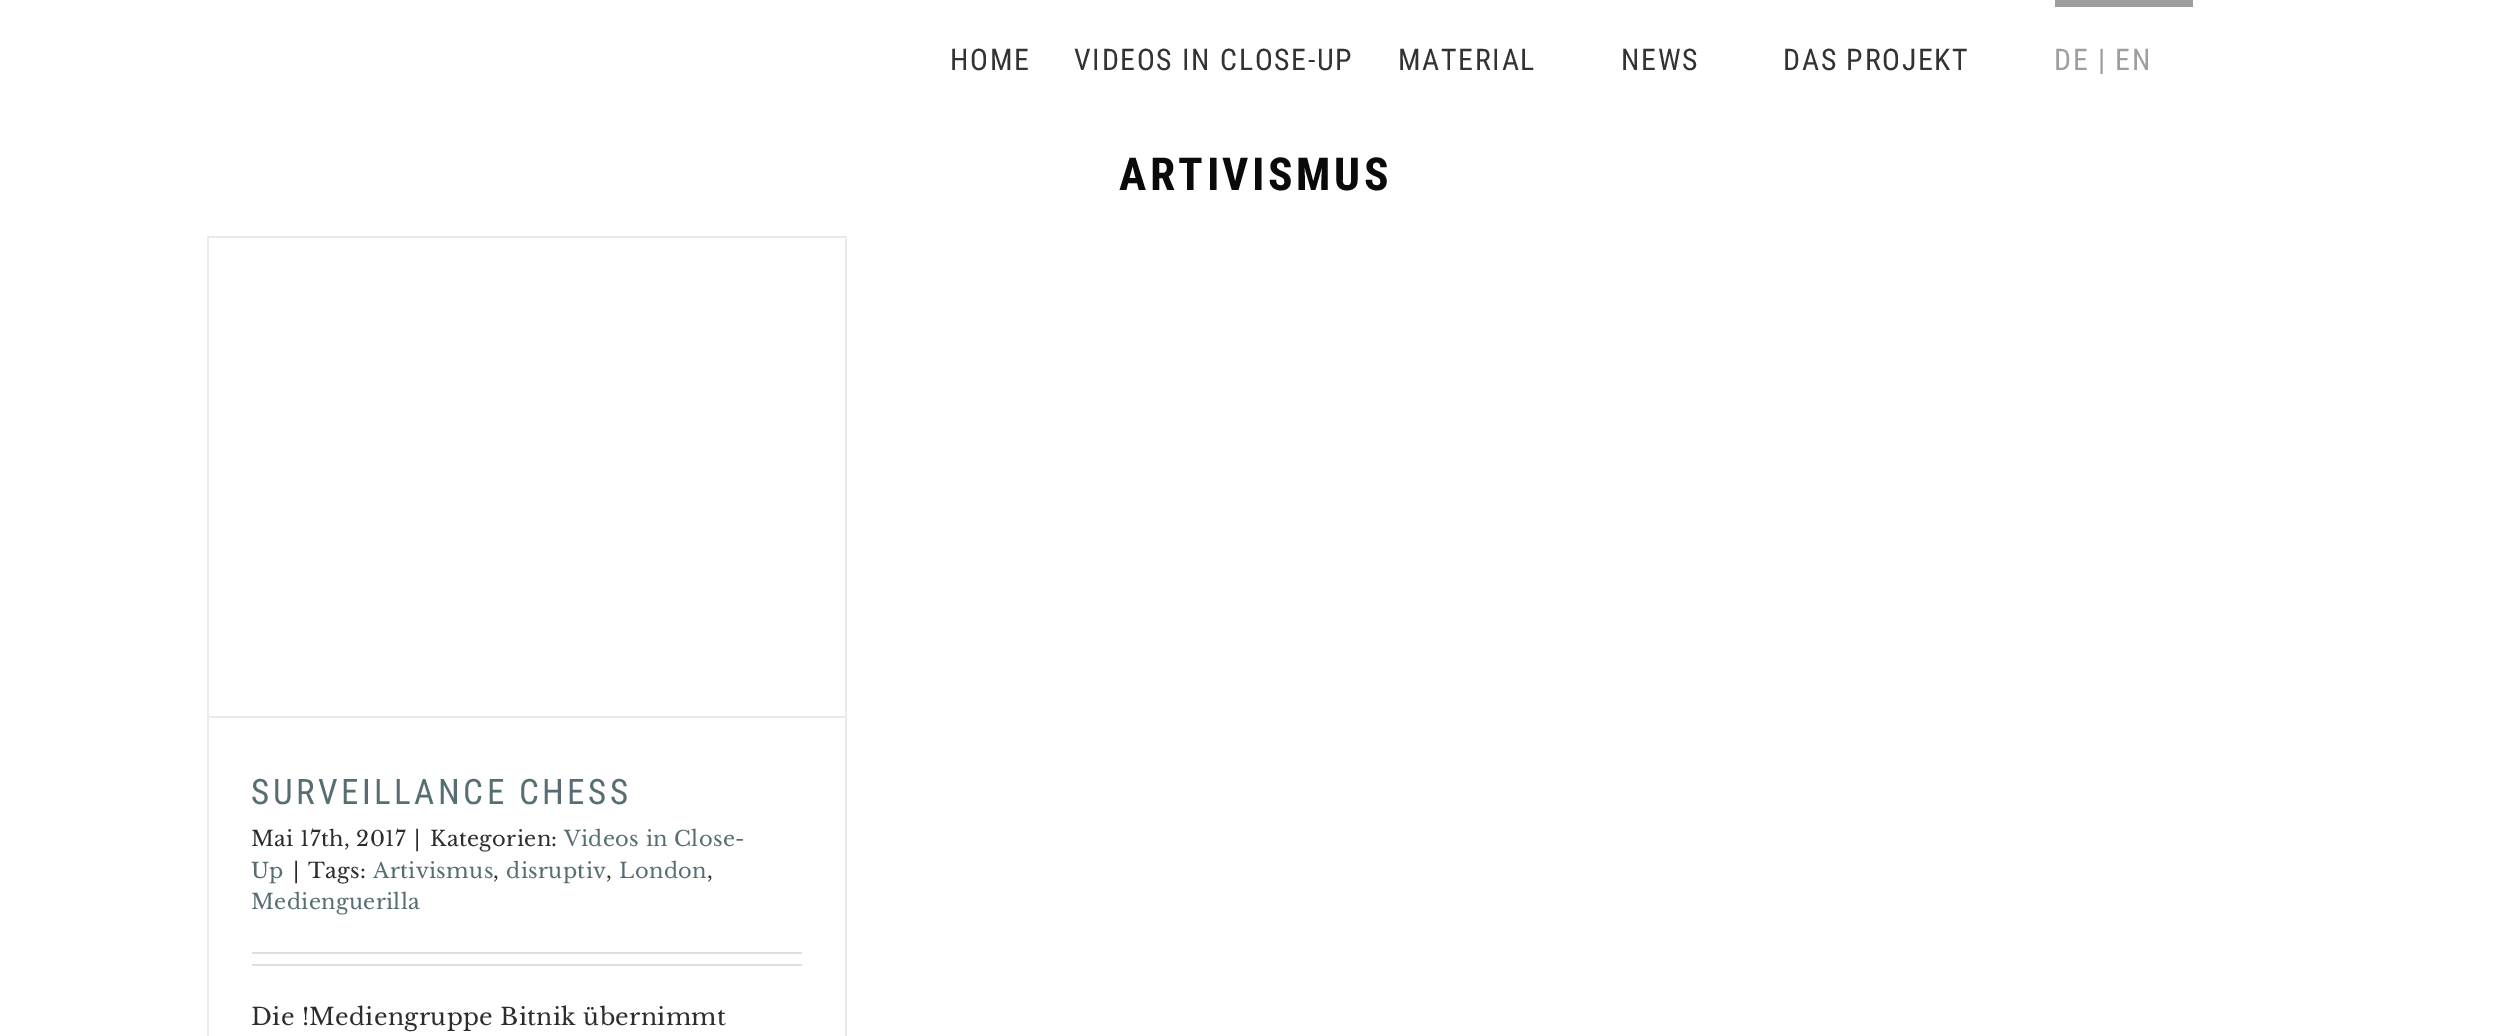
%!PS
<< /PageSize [2510 1036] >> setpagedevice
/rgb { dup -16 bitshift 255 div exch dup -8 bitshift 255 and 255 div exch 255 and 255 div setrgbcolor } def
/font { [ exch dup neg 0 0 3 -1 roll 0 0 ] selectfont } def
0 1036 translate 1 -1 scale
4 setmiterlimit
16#FFFFFF rgb
0 0 2510 1036 rectfill
/RobotoCondensed-Regular 29.75 font
16#333333 rgb
950 70 moveto 1.75 0 (HOME) ashow
1074 70 moveto 1.75 0 (VIDEOS IN CLOSE-UP) ashow
1398 70 moveto 1.75 0 (MATERIAL) ashow
1621 70 moveto 1.75 0 (NEWS) ashow
1783 70 moveto 1.75 0 (DAS PROJEKT) ashow
16#9E9E9E rgb
2055 0 138 7 rectfill
2054 70 moveto 1.75 0 (DE | EN) ashow
/RobotoCondensed-Bold 45.5 font
16#0A0A0A rgb
1119 190 moveto 3.5 0 (ARTIVISMUS) ashow
16#EBEAEA rgb
207 236 640 2 rectfill
845 236 2 800 rectfill
207 236 2 800 rectfill
208 716 637 2 rectfill
/RobotoCondensed-Regular 35 font
16#566D72 rgb
251 804 moveto 3.5 0 (SURVEILLANCE CHESS) ashow
/LibreBaskerville-Regular 21 font
16#2D2D2D rgb
251 846 moveto 0.35 0 (Mai 17th, 2017) ashow
414 846 moveto 0.35 0 (|) ashow
430 846 moveto 0.35 0 (Kategorien:) ashow
16#566D72 rgb
564 846 moveto 0.35 0 (Videos in Close-) ashow
251 878 moveto 0.35 0 (Up) ashow
16#2D2D2D rgb
293 878 moveto 0.35 0 (|) ashow
308 878 moveto 0.35 0 (Tags:) ashow
16#566D72 rgb
373 878 moveto 0.35 0 (Artivismus) ashow
16#2D2D2D rgb
493 878 moveto 0.35 0 (,) ashow
16#566D72 rgb
506 878 moveto 0.35 0 (disruptiv) ashow
16#2D2D2D rgb
606 878 moveto 0.35 0 (,) ashow
16#566D72 rgb
619 878 moveto 0.35 0 (London) ashow
16#2D2D2D rgb
707 878 moveto 0.35 0 (,) ashow
16#566D72 rgb
251 909 moveto 0.35 0 (Medienguerilla) ashow
16#E0DEDE rgb
252 952 550 2 rectfill
252 964 550 2 rectfill
/LibreBaskerville-Regular 23.6 font
16#2D2D2D rgb
251 1025 moveto 0.35 0 (Die !Mediengruppe Bitnik übernimmt) ashow
showpage
